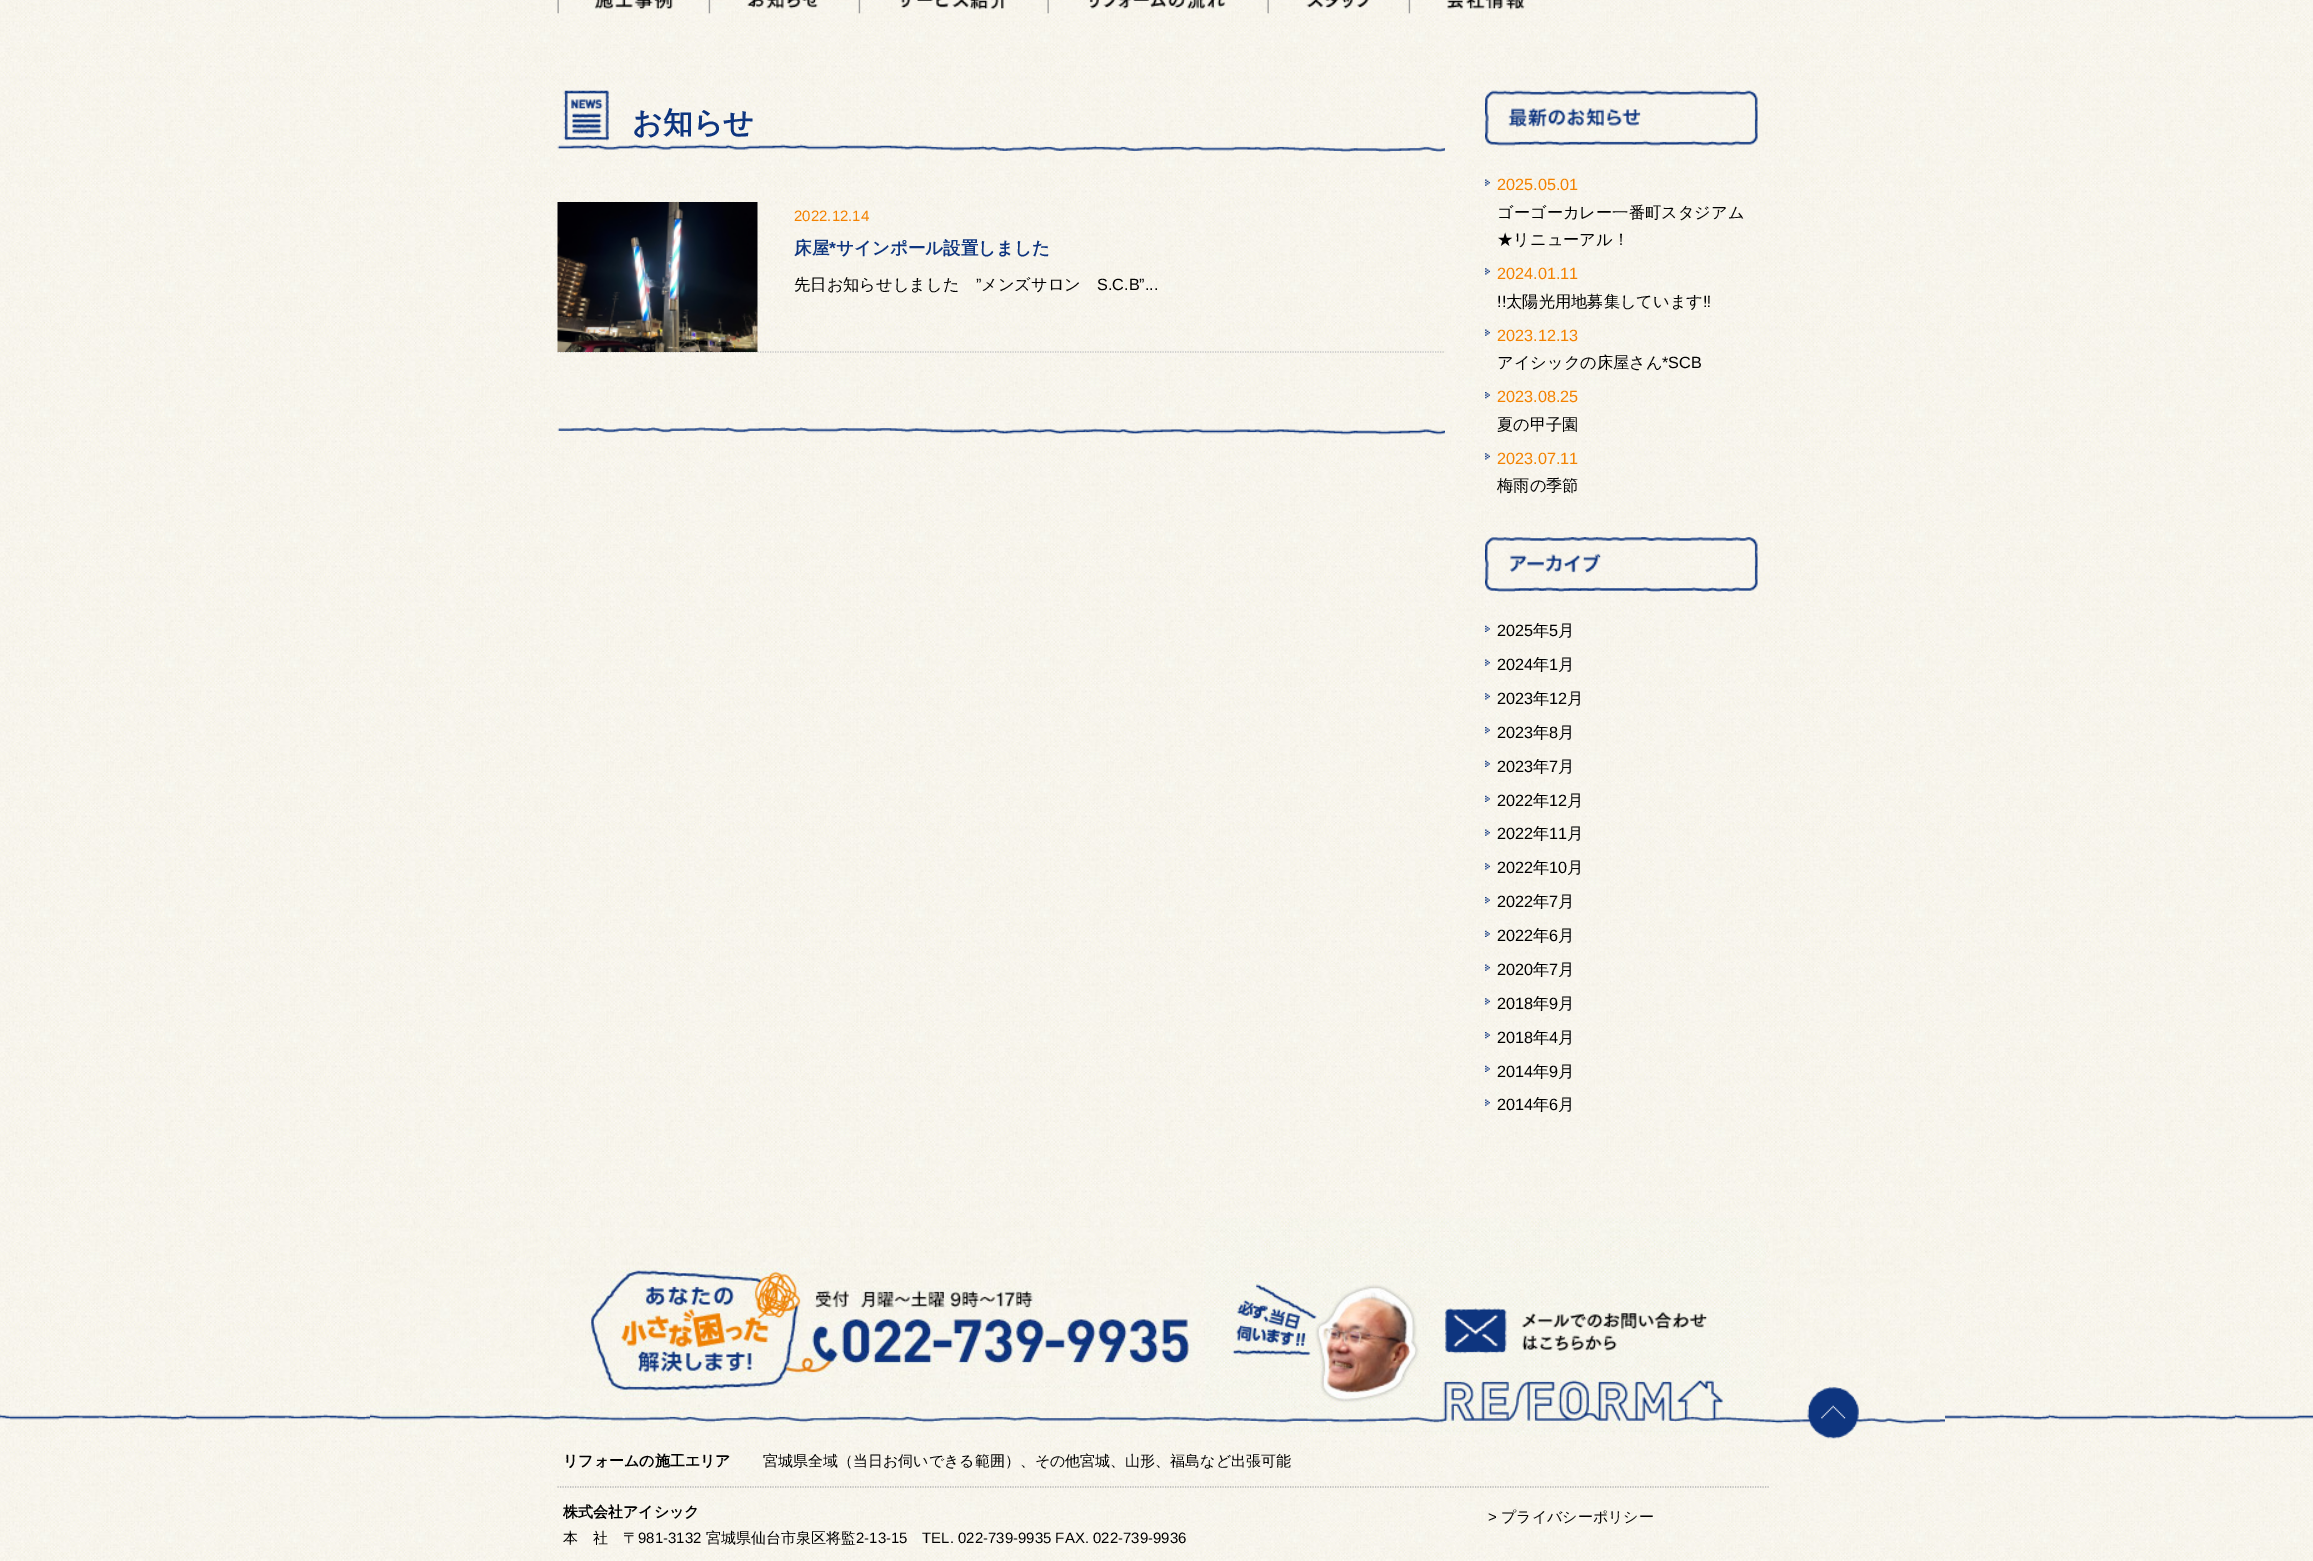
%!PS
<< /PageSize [2313 1561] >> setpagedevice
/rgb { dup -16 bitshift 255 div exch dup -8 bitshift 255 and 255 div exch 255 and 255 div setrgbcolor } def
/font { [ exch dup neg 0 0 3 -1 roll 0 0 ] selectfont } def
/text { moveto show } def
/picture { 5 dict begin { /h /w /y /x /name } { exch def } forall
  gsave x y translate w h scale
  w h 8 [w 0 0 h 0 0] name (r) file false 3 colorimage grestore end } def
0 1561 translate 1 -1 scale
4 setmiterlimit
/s1 { /WenQuanYiZenHei-Bold 30 font 16#0E357F rgb } def
/s2 { /LiberationSans-Regular 15 font 16#F38200 rgb } def
/s3 { /WenQuanYiZenHei-Bold 17.5 font 16#0E357F rgb } def
/s4 { /LiberationSans-Bold 17.5 font 16#0E357F rgb } def
/s5 { /WenQuanYiZenHei-Medium 16.25 font 16#000000 rgb } def
/s6 { /LiberationSans-Regular 16.25 font 16#000000 rgb } def
/s7 { /LiberationSans-Regular 16.25 font 16#F38200 rgb } def
/s8 { /WenQuanYiZenHei-Bold 15 font 16#000000 rgb } def
/s9 { /WenQuanYiZenHei-Medium 15 font 16#000000 rgb } def
/s10 { /LiberationSans-Regular 15 font 16#000000 rgb } def
16#FFFFFF rgb
0 0 2313 1561 rectfill
(pic1.raw) 0 0 2313 1561 picture
(pic2.raw) 557 0 116 14 picture
(pic3.raw) 708 0 110 14 picture
(pic4.raw) 858 0 146 14 picture
(pic5.raw) 1047 0 179 14 picture
(pic6.raw) 1267 0 102 14 picture
(pic7.raw) 1408 0 117 14 picture
(pic8.raw) 557 90 888 62 picture
s1
(お知らせ) 632 133 text
16#C7C7C7 rgb
1.2 setlinewidth
[1.25 1.25] 0 setdash
557.5 352 moveto 1445 352 lineto stroke
(pic9.raw) 557 202 201 150 picture
s2
(2022.12.14) 794 221 text
s3
(床屋) 794 254 text
s4
(*) 829 254 text
s3
(サインポール設置しました) 836 254 text
s5
(先日お知らせしました) 794 290 text
s6
(”) 976 290 text
s5
(メンズサロン) 981 290 text
s6
(S.C.B”...) 1097 290 text
(pic10.raw) 557 427 888 8 picture
(pic11.raw) 1485 90 273 56 picture
(pic12.raw) 1485 179 5 7 picture
s7
(2025.05.01) 1497 190 text
s5
(ゴーゴーカレー一番町スタジアム) 1497 218 text
(★リニューアル！) 1497 245 text
(pic13.raw) 1485 268 5 7 picture
s7
(2024.01.11) 1497 279 text
s6
(!!) 1497 307 text
s5
(太陽光用地募集しています) 1506 307 text
s6
(‼) 1703 307 text
(pic14.raw) 1485 329 5 7 picture
s7
(2023.12.13) 1497 341 text
s5
(アイシックの床屋さん) 1497 368 text
s6
(*SCB) 1662 368 text
(pic15.raw) 1485 392 5 7 picture
s7
(2023.08.25) 1497 402 text
s5
(夏の甲子園) 1497 430 text
(pic16.raw) 1485 453 5 7 picture
s7
(2023.07.11) 1497 464 text
s5
(梅雨の季節) 1497 491 text
(pic17.raw) 1485 537 273 55 picture
(pic18.raw) 1485 625 5 7 picture
s6
(2025) 1497 636 text
s5
(年) 1533 636 text
s6
(5) 1549 636 text
s5
(月) 1558 636 text
(pic19.raw) 1485 659 5 7 picture
s6
(2024) 1497 670 text
s5
(年) 1533 670 text
s6
(1) 1549 670 text
s5
(月) 1558 670 text
(pic20.raw) 1485 693 5 7 picture
s6
(2023) 1497 704 text
s5
(年) 1533 704 text
s6
(12) 1549 704 text
s5
(月) 1567 704 text
(pic21.raw) 1485 727 5 7 picture
s6
(2023) 1497 738 text
s5
(年) 1533 738 text
s6
(8) 1549 738 text
s5
(月) 1558 738 text
(pic22.raw) 1485 760 5 7 picture
s6
(2023) 1497 772 text
s5
(年) 1533 772 text
s6
(7) 1549 772 text
s5
(月) 1558 772 text
(pic23.raw) 1485 795 5 7 picture
s6
(2022) 1497 806 text
s5
(年) 1533 806 text
s6
(12) 1549 806 text
s5
(月) 1567 806 text
(pic14.raw) 1485 829 5 7 picture
s6
(2022) 1497 839 text
s5
(年) 1533 839 text
s6
(11) 1549 839 text
s5
(月) 1567 839 text
(pic24.raw) 1485 863 5 7 picture
s6
(2022) 1497 873 text
s5
(年) 1533 873 text
s6
(10) 1549 873 text
s5
(月) 1567 873 text
(pic25.raw) 1485 897 5 7 picture
s6
(2022) 1497 907 text
s5
(年) 1533 907 text
s6
(7) 1549 907 text
s5
(月) 1558 907 text
(pic26.raw) 1485 930 5 7 picture
s6
(2022) 1497 941 text
s5
(年) 1533 941 text
s6
(6) 1549 941 text
s5
(月) 1558 941 text
(pic27.raw) 1485 964 5 7 picture
s6
(2020) 1497 975 text
s5
(年) 1533 975 text
s6
(7) 1549 975 text
s5
(月) 1558 975 text
(pic28.raw) 1485 998 5 7 picture
s6
(2018) 1497 1009 text
s5
(年) 1533 1009 text
s6
(9) 1549 1009 text
s5
(月) 1558 1009 text
(pic29.raw) 1485 1032 5 7 picture
s6
(2018) 1497 1043 text
s5
(年) 1533 1043 text
s6
(4) 1549 1043 text
s5
(月) 1558 1043 text
(pic30.raw) 1485 1065 5 7 picture
s6
(2014) 1497 1077 text
s5
(年) 1533 1077 text
s6
(9) 1549 1077 text
s5
(月) 1558 1077 text
(pic31.raw) 1485 1099 5 7 picture
s6
(2014) 1497 1110 text
s5
(年) 1533 1110 text
s6
(6) 1549 1110 text
s5
(月) 1558 1110 text
(pic32.raw) 0 1414 2313 6 picture
(pic33.raw) 370 1218 1575 217 picture
(pic34.raw) 1445 1308 262 46 picture
(pic35.raw) 1807 1387 52 52 picture
16#B4B4B4 rgb
557.5 1487 moveto 1770 1487 lineto stroke
s8
(リフォームの施工エリア) 563 1466 text
s9
(宮城県全域（当日お伺いできる範囲）、その他宮城、山形、福島など出張可能) 763 1466 text
s8
(株式会社アイシック) 563 1517 text
s9
(本　社　〒) 563 1543 text
s10
(981-3132) 638 1543 text
s9
(宮城県仙台市泉区将監) 706 1543 text
s10
(2-13-15) 856 1543 text
(TEL. 022-739-9935 FAX. 022-739-9936) 922 1543 text
(>) 1488 1522 text
s9
(プライバシーポリシー) 1501 1522 text
showpage
